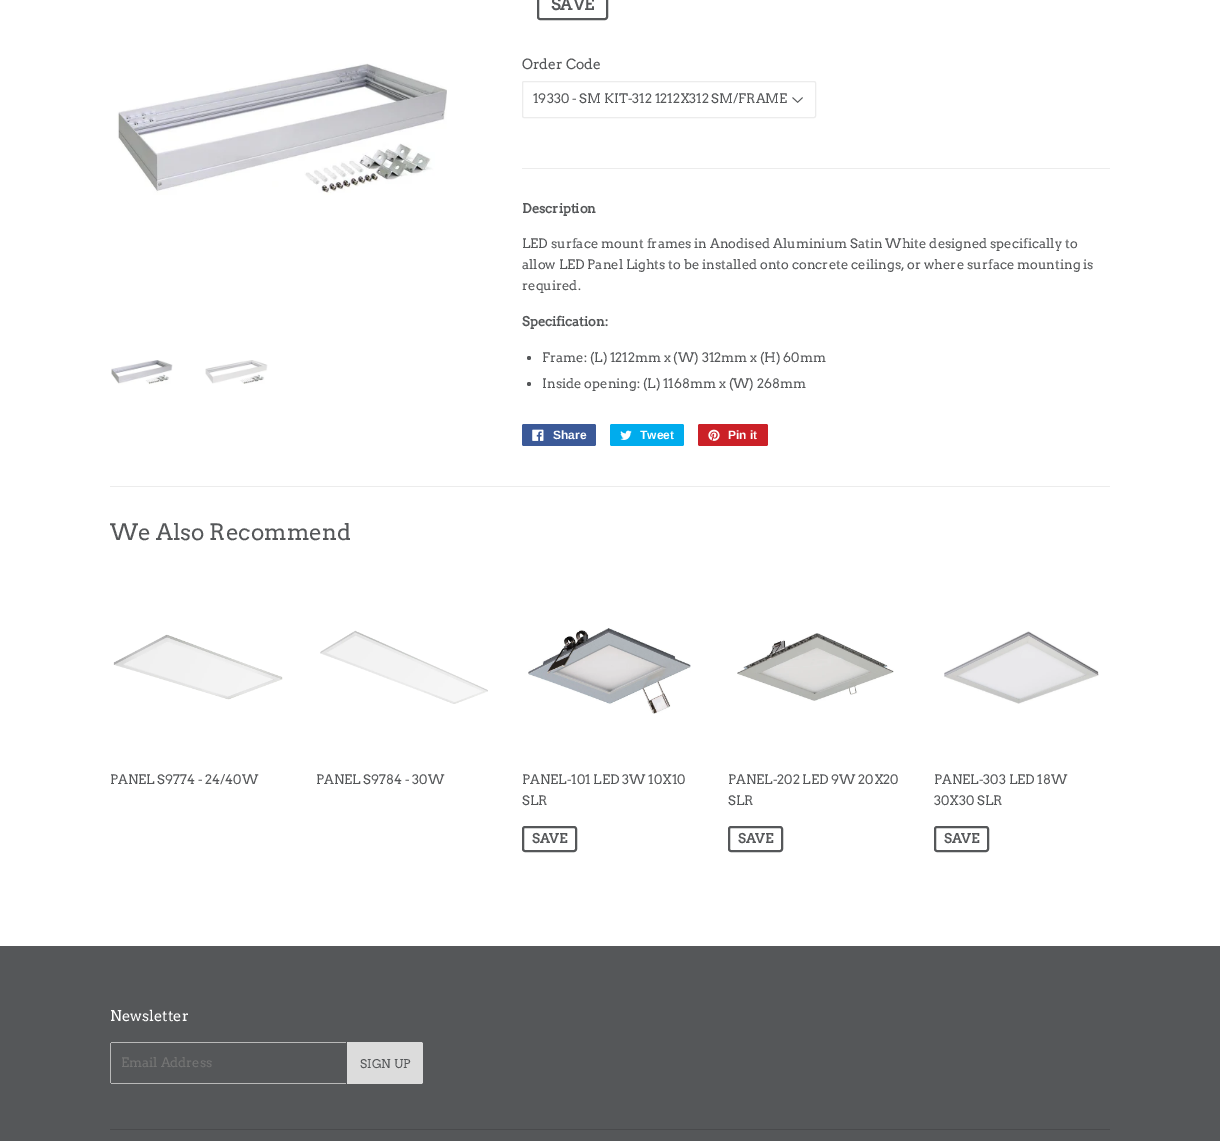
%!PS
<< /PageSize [1220 1141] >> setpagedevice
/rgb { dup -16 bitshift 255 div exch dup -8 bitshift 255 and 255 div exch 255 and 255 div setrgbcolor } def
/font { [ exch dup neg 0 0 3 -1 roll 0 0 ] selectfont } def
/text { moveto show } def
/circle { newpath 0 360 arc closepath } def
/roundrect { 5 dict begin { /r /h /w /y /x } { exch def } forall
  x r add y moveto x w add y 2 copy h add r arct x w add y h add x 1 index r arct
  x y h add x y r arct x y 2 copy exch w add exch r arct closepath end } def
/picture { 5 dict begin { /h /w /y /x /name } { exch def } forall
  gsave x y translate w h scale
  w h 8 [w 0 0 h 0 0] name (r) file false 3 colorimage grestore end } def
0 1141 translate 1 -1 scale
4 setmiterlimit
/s1 { /Arvo-Bold 16 font 16#555759 rgb } def
/s2 { /Arvo-Regular 14 font 16#555759 rgb } def
/s3 { /Arvo-Regular 13 font 16#555759 rgb } def
/s4 { /Arvo-Bold 13 font 16#555759 rgb } def
/s5 { /LiberationSans-Bold 12 font 16#FFFFFF rgb } def
/s6 { /Arvo-Regular 22.5 font 16#555759 rgb } def
/s7 { /Arvo-Regular 14.75 font 16#FFFFFF rgb } def
/s8 { /Arvo-Regular 13 font 16#757575 rgb } def
/s9 { /Arvo-Regular 12 font 16#555759 rgb } def
16#FFFFFF rgb
0 0 1220 1141 rectfill
(pic1.raw) 117 63 330 132 picture
(pic2.raw) 111 360 62 25 picture
(pic3.raw) 205 360 63 24 picture
16#555759 rgb
2 setlinewidth
538 -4 69 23 2 roundrect stroke
s1
(SAVE) 551 10 text
s2
(Order Code) 522 69 text
(pic4.raw) 792 97 11 6 picture
16#ECECEC rgb
1 setlinewidth
522.5 81.5 293 36 1.5 roundrect stroke
s3
(19330 - SM KIT-312 1212X312 SM/FRAME) 533 103 text
16#ECECEC rgb
522 168 588 1 rectfill
s4
(Description) 522 213 text
s3
(LED surface mount frames in Anodised Aluminium Satin White designed specifically to) 522 248 text
(allow LED Panel Lights to be installed onto concrete ceilings, or where surface mounting is) 522 269 text
(required.) 522 290 text
s4
(Specification:) 522 326 text
529 358 2 circle fill
s3
(Frame: \(L\) 1212mm x \(W\) 312mm x \(H\) 60mm) 542 362 text
529 384 2 circle fill
(Inside opening: \(L\) 1168mm x \(W\) 268mm) 542 388 text
16#3B5998 rgb
522 424 74 22 2 roundrect fill
(pic5.raw) 532 429 12 12 picture
s5
(Share) 553 439 text
16#00ACED rgb
610 424 74 22 2 roundrect fill
(pic6.raw) 620 430 12 10 picture
s5
(Tweet) 640 439 text
16#CB2027 rgb
698 424 70 22 2 roundrect fill
(pic7.raw) 708 429 12 12 picture
s5
(Pin it) 728 439 text
16#ECECEC rgb
110 486 1000 1 rectfill
s6
(We Also Recommend) 110 540 text
(pic8.raw) 113 634 170 66 picture
s3
(PANEL S9774 - 24/40W) 110 784 text
(pic9.raw) 320 630 168 74 picture
(PANEL S9784 - 30W) 316 784 text
(pic10.raw) 528 628 163 86 picture
(PANEL-101 LED 3W 10X10) 522 784 text
(SLR) 522 805 text
2 setlinewidth
523 827 53 24 2 roundrect stroke
s4
(SAVE) 532 843 text
(pic11.raw) 737 633 157 68 picture
s3
(PANEL-202 LED 9W 20X20) 728 784 text
(SLR) 728 805 text
729 827 53 24 2 roundrect stroke
s4
(SAVE) 738 843 text
(pic12.raw) 944 631 155 73 picture
s3
(PANEL-303 LED 18W) 934 784 text
(30X30 SLR) 934 805 text
935 827 53 24 2 roundrect stroke
s4
(SAVE) 944 843 text
0 946 1220 195 rectfill
s7
(Newsletter) 110 1021 text
16#B9B9B9 rgb
111 1042 235 1 rectfill
111 1083 235 1 rectfill
110 1043 1 40 rectfill
s8
(Email Address) 121 1067 text
16#DCDCDC rgb
347 1042 moveto 421 1042 lineto 422 1042 423 1043 423 1044 curveto 423 1082 lineto 423 1083 422 1084 421 1084 curveto 347 1084 lineto closepath fill
s9
(SIGN UP) 360 1068 text
16#494A4C rgb
110 1129 1000 1 rectfill
showpage
